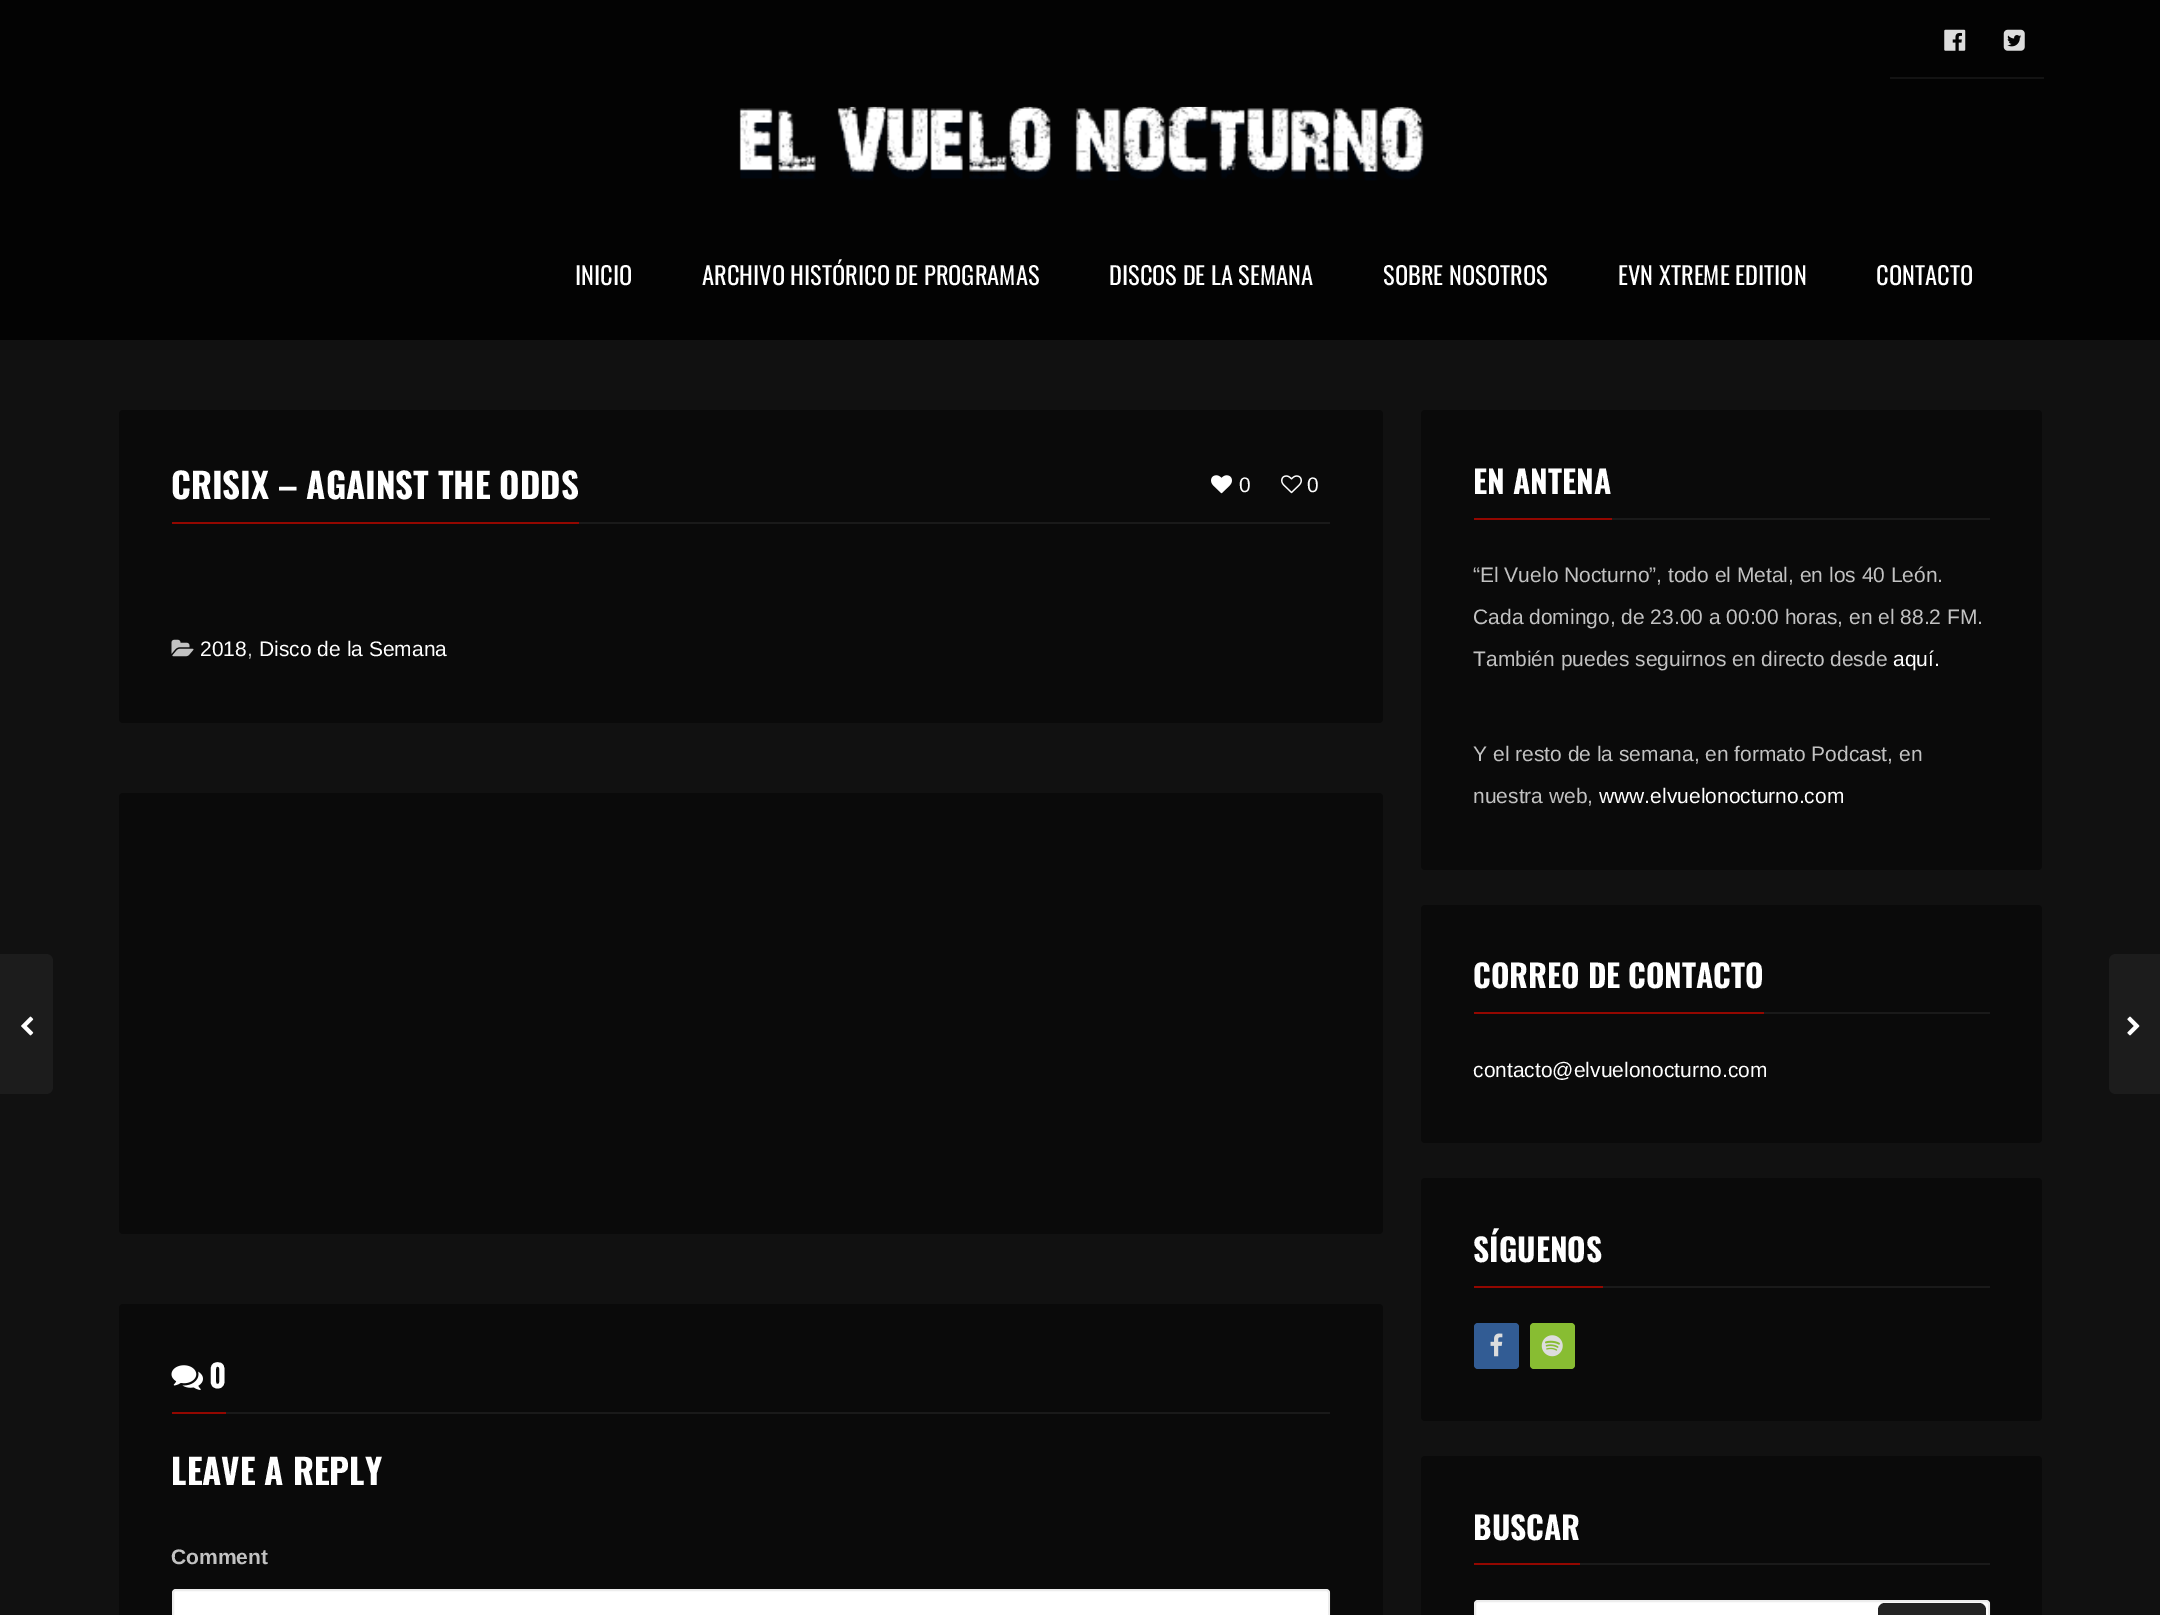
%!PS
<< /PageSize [2160 1615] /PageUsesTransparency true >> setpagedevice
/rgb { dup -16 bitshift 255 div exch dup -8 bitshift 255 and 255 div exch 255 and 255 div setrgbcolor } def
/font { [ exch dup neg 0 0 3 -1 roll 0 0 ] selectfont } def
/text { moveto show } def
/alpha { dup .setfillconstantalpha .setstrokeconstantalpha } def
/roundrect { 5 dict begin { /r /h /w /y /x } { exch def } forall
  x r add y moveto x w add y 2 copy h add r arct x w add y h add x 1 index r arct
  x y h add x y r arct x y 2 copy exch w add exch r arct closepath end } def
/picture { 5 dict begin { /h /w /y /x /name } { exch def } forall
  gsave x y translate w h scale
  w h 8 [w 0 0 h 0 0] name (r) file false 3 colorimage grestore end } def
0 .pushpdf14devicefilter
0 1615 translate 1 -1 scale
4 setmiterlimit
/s1 { /Oswald-Regular 24.5 font 16#FFFFFF rgb } def
/s2 { /Oswald-Bold 35 font 16#FFFFFF rgb } def
/s3 { /LiberationSans-Regular 21 font 16#FFFFFF rgb } def
/s4 { /LiberationSans-Regular 21 font 16#C2C2C2 rgb } def
/s5 { /Oswald-Bold 31.5 font 16#FFFFFF rgb } def
/s6 { /LiberationSans-Bold 21 font 16#C2C2C2 rgb } def
16#111111 rgb
0 0 2160 1615 rectfill
16#030303 rgb
0 0 2160 340 rectfill
16#131313 rgb
1890 77 154 2 rectfill
(pic1.raw) 1944 29 22 22 picture
(pic2.raw) 2003 29 22 22 picture
(pic3.raw) 739 106 685 75 picture
s1
(INICIO) 575 285 text
(ARCHIVO HISTÓRICO DE PROGRAMAS) 702 285 text
(DISCOS DE LA SEMANA) 1109 285 text
(SOBRE NOSOTROS) 1383 285 text
(EVN XTREME EDITION) 1618 285 text
(CONTACTO) 1876 285 text
16#0A0A0A rgb
119 410 1264 313 4 roundrect fill
16#930700 rgb
172 522 407 2 rectfill
s2
(CRISIX – AGAINST THE ODDS) 171 499 text
(pic4.raw) 1211 475 21 19 picture
s3
(0) 1239 492 text
(pic5.raw) 1281 475 21 19 picture
(0) 1307 492 text
16#1A1A1A rgb
579 522 751 2 rectfill
(pic6.raw) 171 639 23 18 picture
s3
(2018) 200 656 text
s4
(,) 247 656 text
s3
(Disco de la Semana) 259 656 text
16#0A0A0A rgb
119 793 1264 441 4 roundrect fill
16#1C1C1C rgb
-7 954 moveto 46 954 lineto 50 954 53 957 53 961 curveto 53 1087 lineto 53 1091 50 1094 46 1094 curveto -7 1094 lineto closepath fill
(pic7.raw) 21 1016 13 20 picture
2116 954 moveto 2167 954 lineto 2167 1094 lineto 2116 1094 lineto 2112 1094 2109 1091 2109 1087 curveto 2109 961 lineto 2109 957 2112 954 2116 954 curveto closepath fill
(pic8.raw) 2127 1016 13 20 picture
16#0A0A0A rgb
119 1304 1264 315 4 roundrect fill
16#930700 rgb
172 1412 54 2 rectfill
(pic9.raw) 171 1365 32 25 picture
s5
(0) 209 1388 text
16#1A1A1A rgb
226 1412 1104 2 rectfill
s2
(LEAVE A REPLY) 171 1485 text
s6
(Comment) 171 1564 text
16#FFFFFF rgb
172 1589 1158 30 4 roundrect fill
0.2 alpha
16#A7A7A7 rgb
2 setlinewidth
173 1590 1156 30 3 roundrect stroke
1 alpha
16#0A0A0A rgb
1421 410 621 460 4 roundrect fill
16#930700 rgb
1474 518 138 2 rectfill
s5
(EN ANTENA) 1473 494 text
16#1A1A1A rgb
1612 518 378 2 rectfill
s4
(“El Vuelo Nocturno”, todo el Metal, en los 40 León.) 1473 582 text
(Cada domingo, de 23.00 a 00:00 horas, en el 88.2 FM.) 1473 624 text
(También puedes seguirnos en directo desde) 1473 666 text
s3
(aquí.) 1893 666 text
s4
(Y el resto de la semana, en formato Podcast, en) 1473 761 text
(nuestra web,) 1473 803 text
s3
(www.elvuelonocturno.com) 1599 803 text
16#0A0A0A rgb
1421 905 621 238 4 roundrect fill
16#930700 rgb
1474 1012 290 2 rectfill
s5
(CORREO DE CONTACTO) 1473 988 text
16#1A1A1A rgb
1764 1012 226 2 rectfill
s3
(contacto@elvuelonocturno.com) 1473 1077 text
16#0A0A0A rgb
1421 1178 621 243 4 roundrect fill
16#930700 rgb
1474 1286 129 2 rectfill
s5
(SÍGUENOS) 1473 1262 text
16#1A1A1A rgb
1603 1286 387 2 rectfill
16#325C94 rgb
1474 1323 45 46 4 roundrect fill
(pic10.raw) 1490 1333 13 24 picture
16#88BD32 rgb
1530 1323 45 46 4 roundrect fill
(pic11.raw) 1541 1335 22 22 picture
16#0A0A0A rgb
1421 1456 621 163 4 roundrect fill
16#930700 rgb
1474 1563 106 2 rectfill
s5
(BUSCAR) 1473 1540 text
16#1A1A1A rgb
1580 1563 410 2 rectfill
16#FFFFFF rgb
1474 1600 516 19 4 roundrect fill
0.2 alpha
16#A7A7A7 rgb
1475 1601 514 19 3 roundrect stroke
1 alpha
16#232323 rgb
1878 1603 108 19 7 roundrect fill
.poppdf14devicefilter showpage
